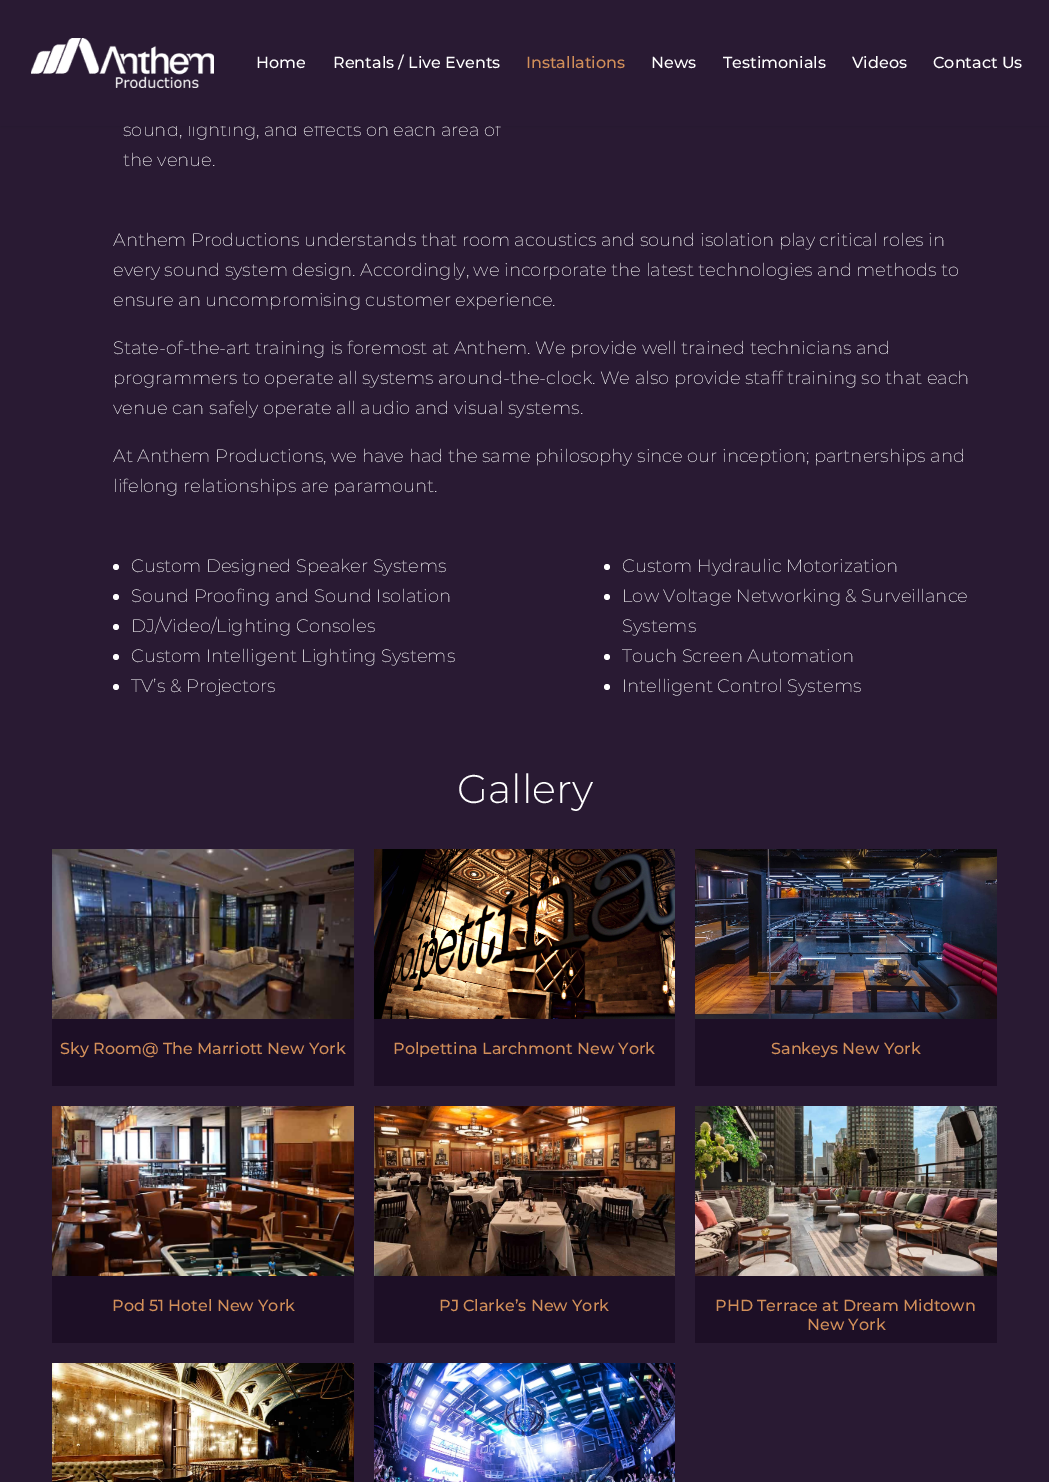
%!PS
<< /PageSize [1049 1482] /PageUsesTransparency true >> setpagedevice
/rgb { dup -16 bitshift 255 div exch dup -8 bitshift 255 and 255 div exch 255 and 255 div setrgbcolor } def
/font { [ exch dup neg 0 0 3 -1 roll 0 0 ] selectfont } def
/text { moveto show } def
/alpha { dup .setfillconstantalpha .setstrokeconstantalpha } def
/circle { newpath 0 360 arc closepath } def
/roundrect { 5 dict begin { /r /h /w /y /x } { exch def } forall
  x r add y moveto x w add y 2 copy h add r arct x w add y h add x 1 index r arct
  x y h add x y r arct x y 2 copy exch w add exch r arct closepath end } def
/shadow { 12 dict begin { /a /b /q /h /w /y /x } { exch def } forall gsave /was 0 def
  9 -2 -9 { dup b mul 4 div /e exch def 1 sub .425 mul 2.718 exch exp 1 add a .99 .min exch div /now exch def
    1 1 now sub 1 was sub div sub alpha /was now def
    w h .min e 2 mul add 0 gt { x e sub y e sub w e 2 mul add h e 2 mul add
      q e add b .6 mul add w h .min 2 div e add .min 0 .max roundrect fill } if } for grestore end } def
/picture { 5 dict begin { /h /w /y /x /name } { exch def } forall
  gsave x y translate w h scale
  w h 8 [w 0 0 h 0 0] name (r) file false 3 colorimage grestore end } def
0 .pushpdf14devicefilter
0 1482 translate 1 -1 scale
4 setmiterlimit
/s1 { /Montserrat-Thin 18 font 16#FFFFFF rgb } def
/s2 { /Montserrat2-Thin 16 font 16#FFFFFF rgb } def
/s3 { /Montserrat2-Thin 16 font 16#D28F59 rgb } def
/s4 { /Montserrat-Light 40 font 16#FFFFFF rgb } def
16#291A33 rgb
0 0 1049 1482 rectfill
16#000000 rgb
0 0 1049 126 0 3.5 0.1 shadow
s1
(sound, lighting, and effects on each area of) 123 136 text
16#291A33 rgb
0 0 1049 126 rectfill
(pic1.raw) 31 38 183 50 picture
s2
(Home) 256 68 text
(Rentals / Live Events) 333 68 text
s3
(Installations) 526 68 text
s2
(News) 651 68 text
(Testimonials) 723 68 text
(Videos) 852 68 text
(Contact Us) 933 68 text
s1
(the venue.) 123 166 text
(Anthem Productions understands that room acoustics and sound isolation play critical roles in) 113 246 text
(every sound system design. Accordingly, we incorporate the latest technologies and methods to) 113 276 text
(ensure an uncompromising customer experience.) 113 306 text
(State-of-the-art training is foremost at Anthem. We provide well trained technicians and) 113 354 text
(programmers to operate all systems around-the-clock. We also provide staff training so that each) 113 384 text
(venue can safely operate all audio and visual systems.) 113 414 text
(At Anthem Productions, we have had the same philosophy since our inception; partnerships and) 113 462 text
(lifelong relationships are paramount.) 113 492 text
116 567 3 circle fill
(Custom Designed Speaker Systems) 131 572 text
116 597 3 circle fill
(Sound Proofing and Sound Isolation) 131 602 text
116 627 3 circle fill
(DJ/Video/Lighting Consoles) 131 632 text
116 657 3 circle fill
(Custom Intelligent Lighting Systems) 131 662 text
116 687 3 circle fill
(TV’s & Projectors) 131 692 text
607 567 3 circle fill
(Custom Hydraulic Motorization) 622 572 text
607 597 3 circle fill
(Low Voltage Networking & Surveillance) 622 602 text
(Systems) 622 632 text
607 657 3 circle fill
(Touch Screen Automation) 622 662 text
607 687 3 circle fill
(Intelligent Control Systems) 622 692 text
s4
(Gallery) 457 803 text
16#1D0F26 rgb
52 1019 302 67 rectfill
(pic2.raw) 52 849 302 170 picture
s3
(Sky Room@ The Marriott New York) 60 1054 text
16#1D0F26 rgb
374 1019 301 67 rectfill
(pic3.raw) 374 849 301 170 picture
s3
(Polpettina Larchmont New York) 393 1054 text
16#1D0F26 rgb
695 1019 302 67 rectfill
(pic4.raw) 695 849 302 170 picture
s3
(Sankeys New York) 771 1054 text
16#1D0F26 rgb
52 1276 302 67 rectfill
(pic5.raw) 52 1106 302 170 picture
s3
(Pod 51 Hotel New York) 112 1311 text
16#1D0F26 rgb
374 1276 301 67 rectfill
(pic6.raw) 374 1106 301 170 picture
s3
(PJ Clarke’s New York) 439 1311 text
16#1D0F26 rgb
695 1276 302 67 rectfill
(pic7.raw) 695 1106 302 170 picture
s3
(PHD Terrace at Dream Midtown) 715 1311 text
(New York) 807 1330 text
(pic8.raw) 52 1363 302 119 picture
(pic9.raw) 374 1363 301 119 picture
.poppdf14devicefilter showpage
